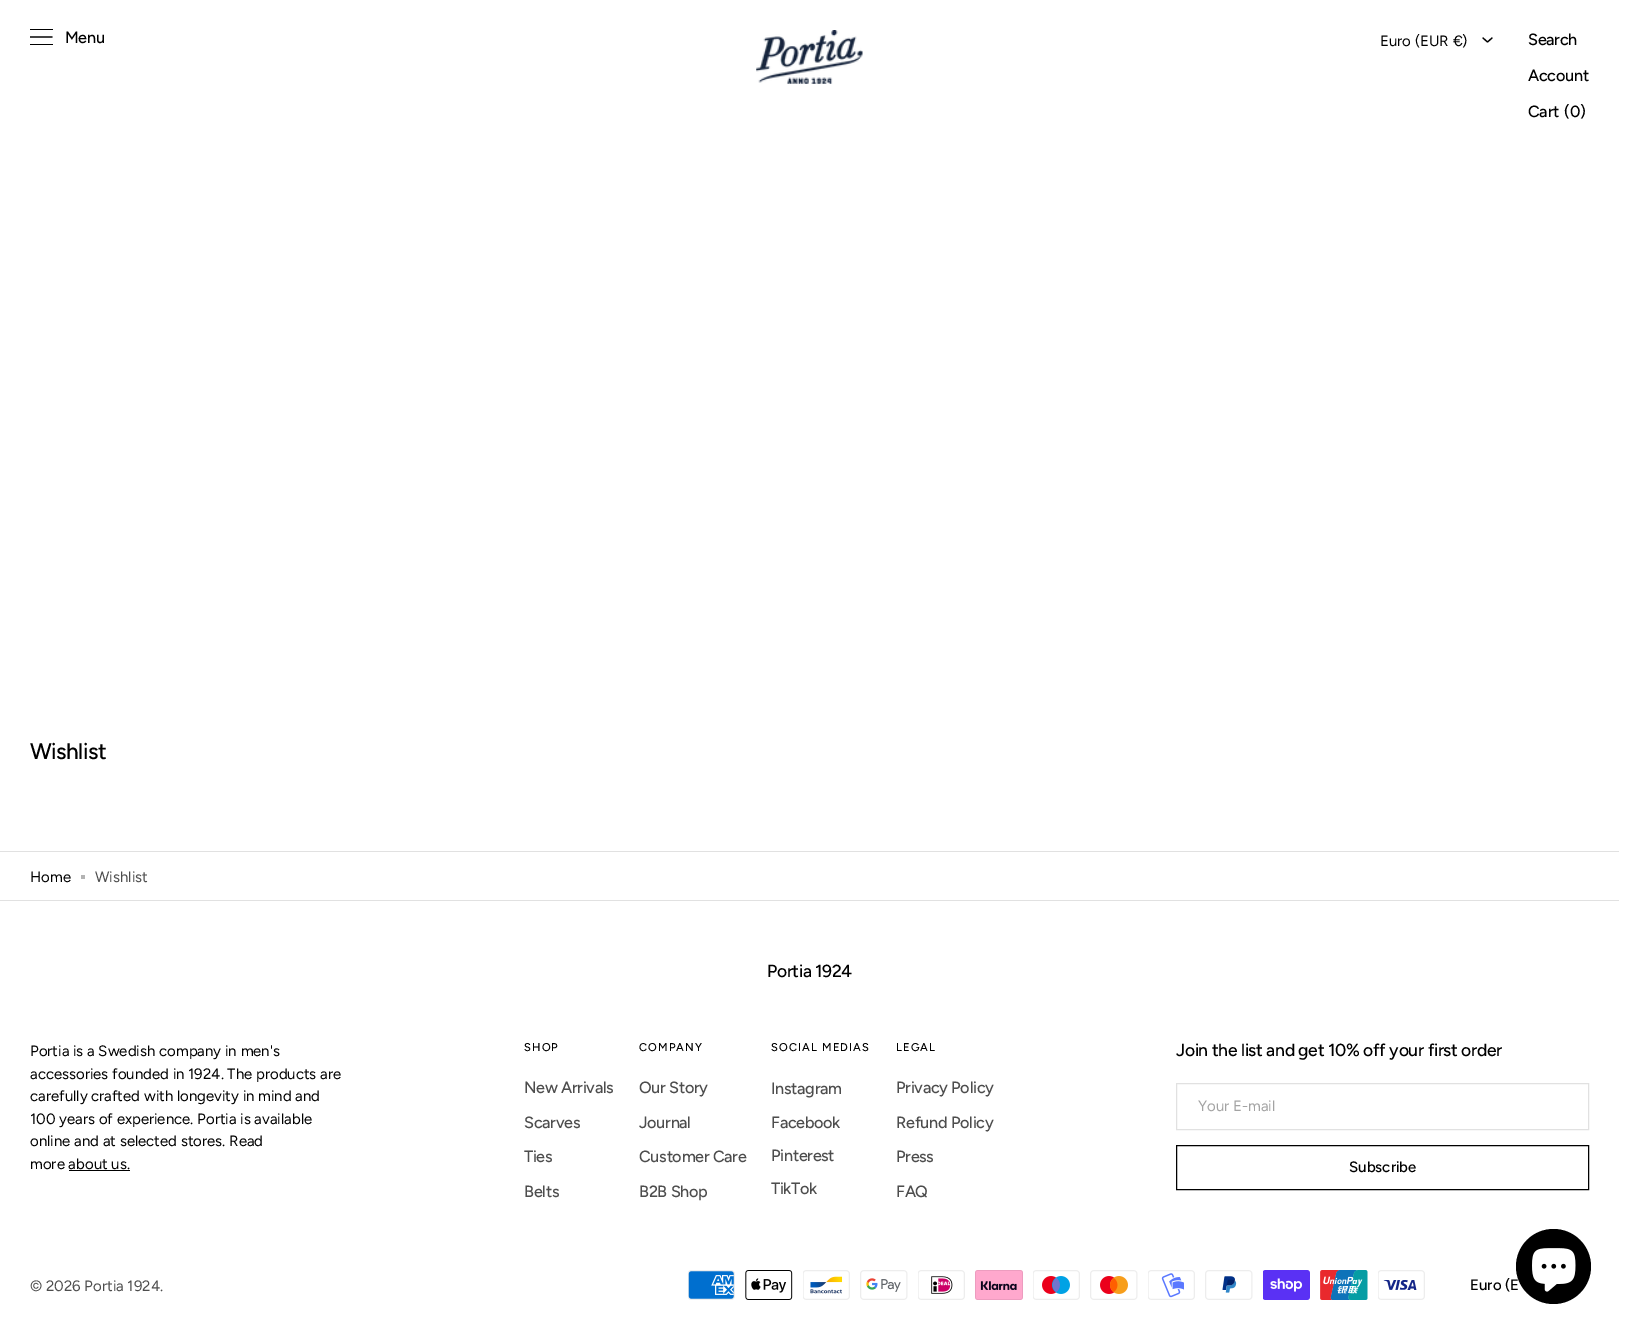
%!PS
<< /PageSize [1637 1329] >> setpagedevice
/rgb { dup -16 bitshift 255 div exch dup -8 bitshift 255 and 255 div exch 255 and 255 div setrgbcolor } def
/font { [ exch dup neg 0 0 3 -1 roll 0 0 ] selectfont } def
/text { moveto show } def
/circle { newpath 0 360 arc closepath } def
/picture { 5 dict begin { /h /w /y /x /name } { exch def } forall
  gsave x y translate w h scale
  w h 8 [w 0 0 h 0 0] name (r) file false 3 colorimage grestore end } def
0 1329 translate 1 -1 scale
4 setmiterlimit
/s1 { /Figtree-Regular 15 font 16#000000 rgb } def
/s2 { /Figtree-Regular 15 font 16#4D4D4D rgb } def
/s3 { /Figtree-Regular 15 font 16#A3A3A3 rgb } def
/s4 { /Figtree-Medium 15 font 16#000000 rgb } def
16#FFFFFF rgb
0 0 1637 1329 rectfill
16#000000 rgb
30 29 23 1 rectfill
1.2 setlinewidth
30 37 moveto 52.5 37 lineto stroke
30 44 23 1 rectfill
/Figtree-Medium 16.25 font
65 43 moveto -0.3 0 (Menu) ashow
(pic1.raw) 756 30 107 54 picture
s1
(Euro \(EUR €\)) 1380 46 text
1 setlinecap
1 setlinejoin
1492 38 moveto 1487.5 42 lineto 1483 38 lineto stroke
/Figtree-Medium 16.25 font
1528 45 moveto -0.3 0 (Search) ashow
1528 81 moveto -0.3 0 (Account) ashow
1528 117 moveto -0.3 0 (Cart) ashow
1564 117 moveto -0.3 0 (\(0\)) ashow
/Figtree-Medium 22.5 font
30 759 moveto -0.5 0 (Wishlist) ashow
16#E1E1E1 rgb
0 851 1619 1 rectfill
s1
(Home) 30 882 text
16#B3B3B3 rgb
81 875 4 4 rectfill
s2
(Wishlist) 95 882 text
16#E1E1E1 rgb
0 900 1619 1 rectfill
/Figtree-Medium 17.5 font
16#000000 rgb
767 977 moveto -0.35 0 (Portia 1924) ashow
s1
(Portia is a Swedish company in men's) 30 1056 text
(accessories founded in 1924. The products are) 30 1079 text
(carefully crafted with longevity in mind and) 30 1101 text
(100 years of experience. Portia is available) 30 1124 text
(online and at selected stores. Read) 30 1146 text
(more about us.) 30 1169 text
69 1170 61 1 rectfill
/Figtree-Medium 11.25 font
524 1051 moveto 1.1 0 (SHOP) ashow
/Figtree-Medium 16.25 font
16#4D4D4D rgb
524 1093 moveto -0.3 0 (New Arrivals) ashow
524 1128 moveto -0.3 0 (Scarves) ashow
524 1162 moveto -0.3 0 (Ties) ashow
524 1197 moveto -0.3 0 (Belts) ashow
/Figtree-Medium 11.25 font
16#000000 rgb
639 1051 moveto 1.1 0 (COMPANY) ashow
/Figtree-Medium 16.25 font
16#4D4D4D rgb
639 1093 moveto -0.3 0 (Our Story) ashow
639 1128 moveto -0.3 0 (Journal) ashow
639 1162 moveto -0.3 0 (Customer Care) ashow
639 1197 moveto -0.3 0 (B2B Shop) ashow
/Figtree-Medium 11.25 font
16#000000 rgb
771 1051 moveto 1.1 0 (SOCIAL MEDIAS) ashow
/Figtree-Medium 16.25 font
16#4D4D4D rgb
771 1094 moveto -0.3 0 (Instagram) ashow
771 1128 moveto -0.3 0 (Facebook) ashow
771 1161 moveto -0.3 0 (Pinterest) ashow
771 1194 moveto -0.3 0 (TikTok) ashow
/Figtree-Medium 11.25 font
16#000000 rgb
896 1051 moveto 1.1 0 (LEGAL) ashow
/Figtree-Medium 16.25 font
16#4D4D4D rgb
896 1093 moveto -0.3 0 (Privacy Policy) ashow
896 1128 moveto -0.3 0 (Refund Policy) ashow
896 1162 moveto -0.3 0 (Press) ashow
896 1197 moveto -0.3 0 (FAQ) ashow
/Figtree-Medium 17.5 font
16#000000 rgb
1176 1056 moveto -0.35 0 (Join the list and get 10% off your first order) ashow
16#E1E1E1 rgb
1 setlinewidth
0 setlinecap
0 setlinejoin
1176.5 1083.5 412 46 rectstroke
s3
(Your E-mail) 1198 1111 text
16#000000 rgb
1176.5 1145.5 412 44 rectstroke
s4
(Subscribe) 1349 1172 text
s2
(© 2026 Portia 1924) 30 1291 text
(.) 160 1291 text
(pic2.raw) 688 1270 47 30 picture
(pic3.raw) 745 1270 48 30 picture
(pic4.raw) 803 1270 47 30 picture
(pic5.raw) 860 1270 48 30 picture
(pic6.raw) 918 1270 47 30 picture
(pic7.raw) 975 1270 48 30 picture
(pic8.raw) 1033 1270 47 30 picture
(pic9.raw) 1090 1270 48 30 picture
(pic10.raw) 1148 1270 47 30 picture
(pic11.raw) 1205 1270 48 30 picture
(pic12.raw) 1263 1270 47 30 picture
(pic13.raw) 1320 1270 48 30 picture
(pic14.raw) 1378 1270 47 30 picture
s4
(Euro \(E) 1470 1290 text
1553.5 1266.5 37.5 circle fill
(pic15.raw) 1532 1248 44 44 picture
showpage
